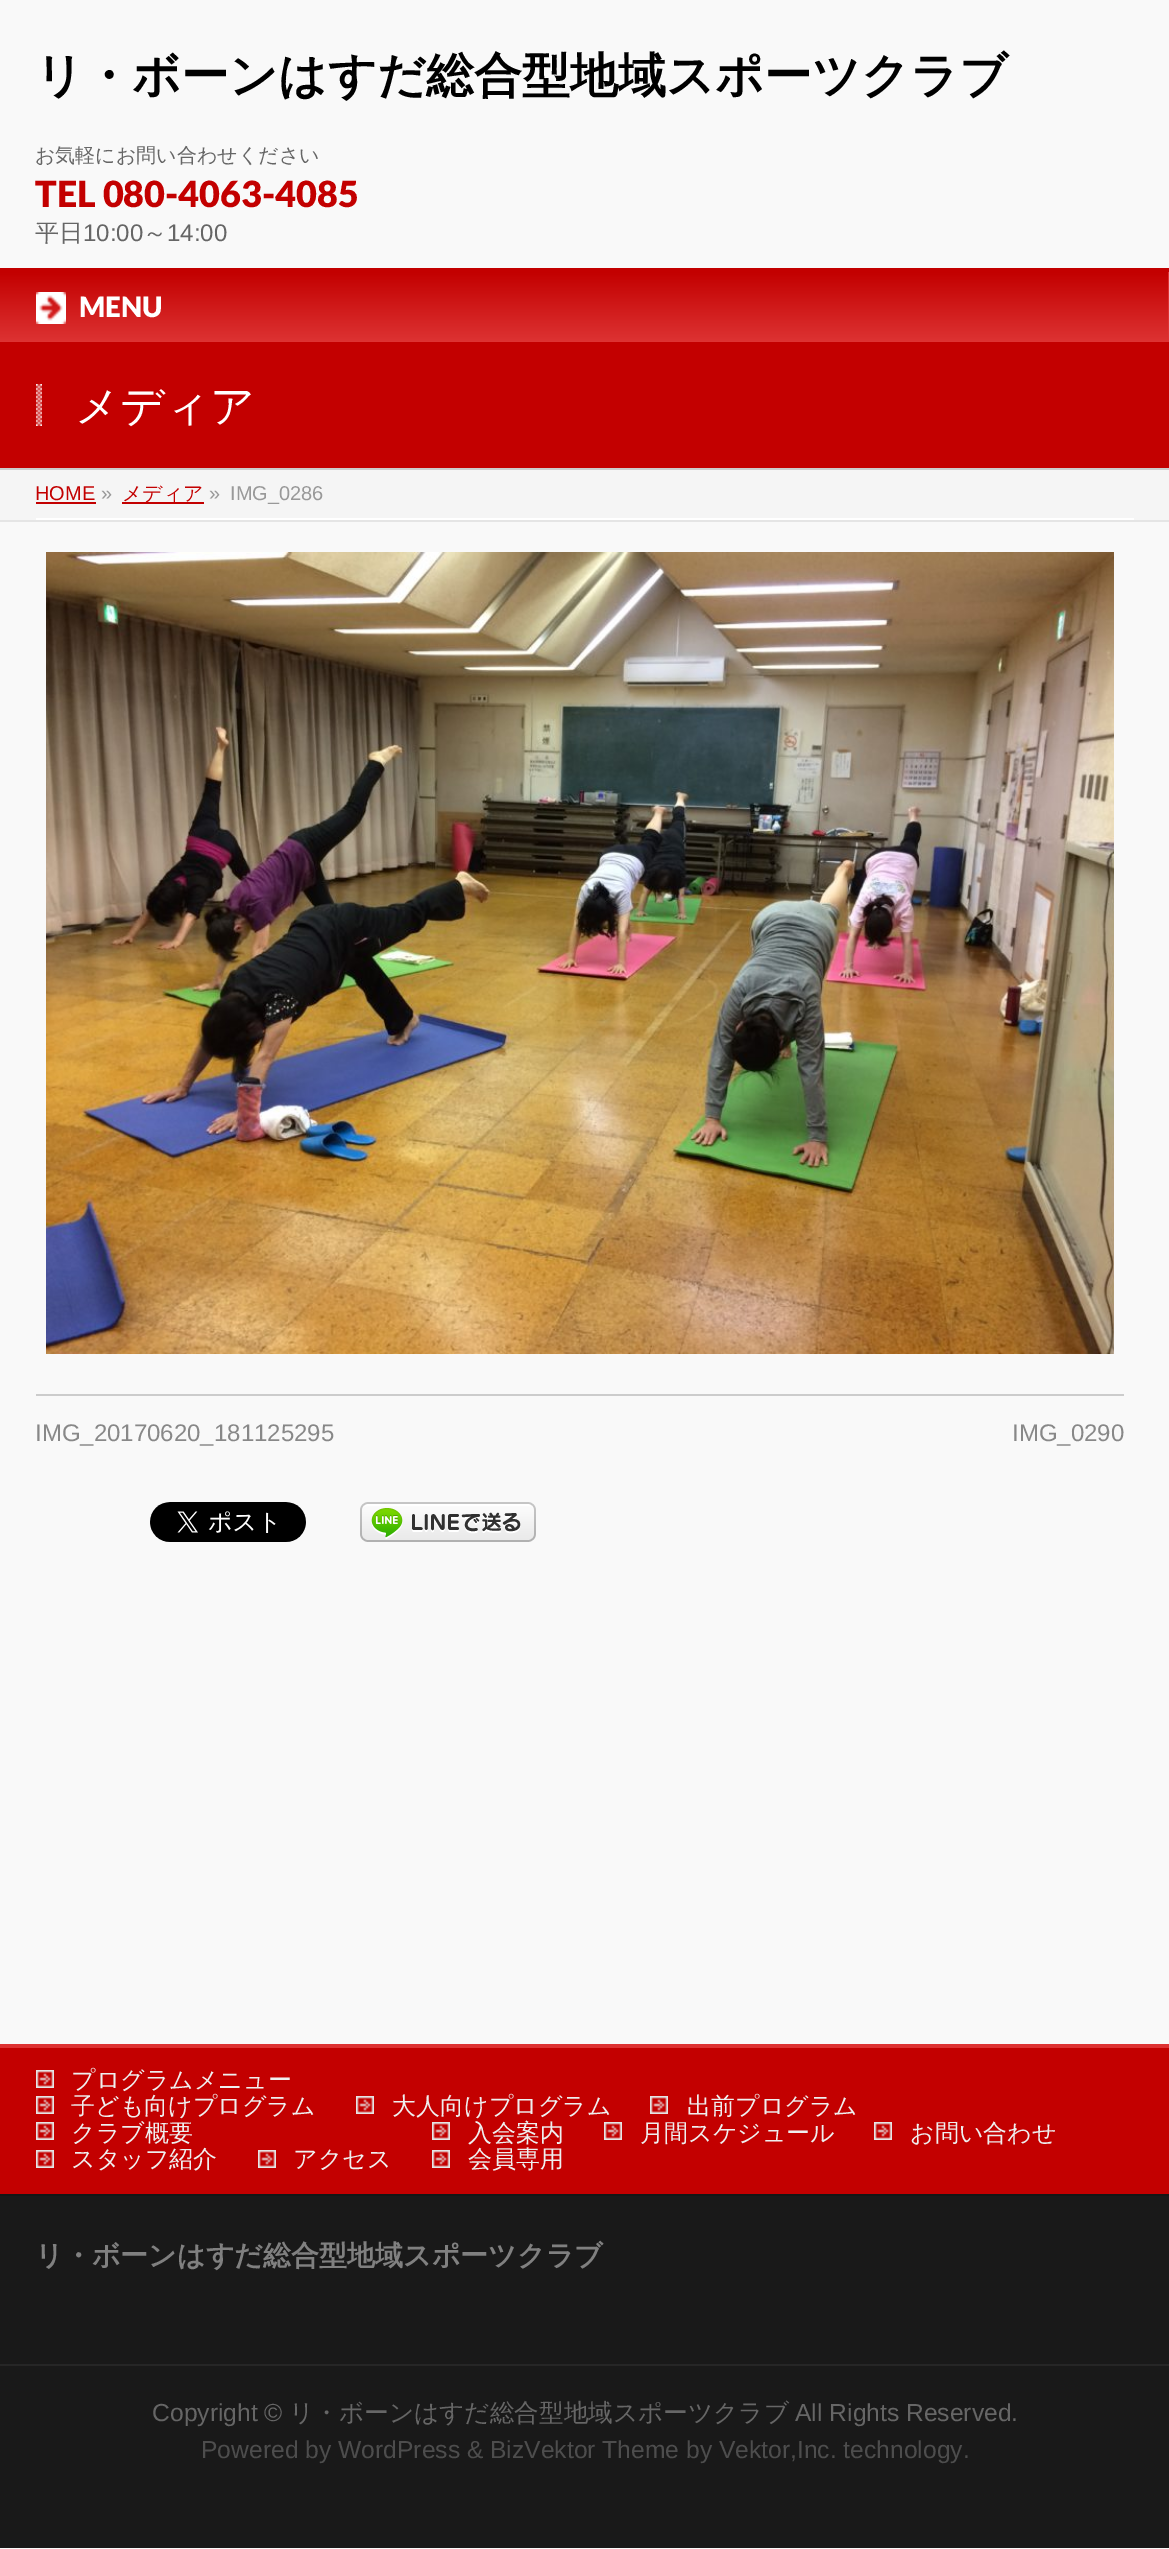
%!PS
<< /PageSize [1169 2549] >> setpagedevice
/rgb { dup -16 bitshift 255 div exch dup -8 bitshift 255 and 255 div exch 255 and 255 div setrgbcolor } def
/font { [ exch dup neg 0 0 3 -1 roll 0 0 ] selectfont } def
/text { moveto show } def
/picture { 5 dict begin { /h /w /y /x /name } { exch def } forall
  gsave x y translate w h scale
  w h 8 [w 0 0 h 0 0] name (r) file false 3 colorimage grestore end } def
0 2549 translate 1 -1 scale
4 setmiterlimit
/s1 { /WenQuanYiZenHei-Bold 48 font 16#000000 rgb } def
/s2 { /WenQuanYiZenHei-Medium 20 font 16#666666 rgb } def
/s3 { /Lato-Black 36 font 16#C30000 rgb } def
/s4 { /WenQuanYiZenHei-Medium 24 font 16#666666 rgb } def
/s5 { /LiberationSans-Regular 24 font 16#666666 rgb } def
/s6 { /Lato-Black 28 font 16#FFFFFF rgb } def
/s7 { /WenQuanYiZenHei-Medium 44 font 16#FFFFFF rgb } def
/s8 { /LiberationSans-Regular 20 font 16#C30000 rgb } def
/s9 { /LiberationSans-Regular 20 font 16#999999 rgb } def
/s10 { /WenQuanYiZenHei-Medium 20 font 16#C30000 rgb } def
/s11 { /LiberationSans-Regular 24 font 16#888888 rgb } def
/s12 { /WenQuanYiZenHei-Medium 24 font 16#EFEFEF rgb } def
/s13 { /WenQuanYiZenHei-Bold 28 font 16#808080 rgb } def
/s14 { /LiberationSans-Regular 24.65 font 16#666666 rgb } def
/s15 { /WenQuanYiZenHei-Medium 24.65 font 16#666666 rgb } def
/s16 { /LiberationSans-Regular 24.65 font 16#4D4D4D rgb } def
16#F9F9F9 rgb
0 0 1169 2549 rectfill
s1
(リ・ボーンはすだ総合型地域スポーツクラブ) 35 92 text
s2
(お気軽にお問い合わせください) 35 162 text
s3
(TEL 080-4063-4085) 35 207 text
s4
(平日) 35 241 text
s5
(10:00) 83 241 text
s4
(～) 143 241 text
s5
(14:00) 167 241 text
16#C30000 rgb
0 268 1169 4 rectfill
gsave 0 272 moveto 1168 272 lineto 1168 342 lineto 0 342 lineto closepath clip newpath
<< /ShadingType 2 /ColorSpace /DeviceRGB /Coords [584 272 584 342] /Extend [true true] /Function << /FunctionType 2 /Domain [0 1] /C0 [0.765 0 0] /C1 [0.867 0.2 0.2] /N 1 >> >> shfill grestore
16#DD3333 rgb
1168 272 1 70 rectfill
(pic1.raw) 36 292 30 32 picture
s6
(MENU) 79 317 text
16#C30000 rgb
0 342 1169 126 rectfill
16#CCCCCC rgb
0 468 1169 2 rectfill
(pic2.raw) 36 384 6 42 picture
s7
(メディア) 75 421 text
16#F5F5F5 rgb
0 470 1169 50 rectfill
16#E5E5E5 rgb
0 520 1169 2 rectfill
16#FFFFFF rgb
36 518 1098 2 rectfill
s8
(HOME) 35 500 text
36 502 60 2 rectfill
s9
(») 101 500 text
16#C30000 rgb
122 502 82 2 rectfill
s10
(メディア) 122 500 text
s9
(») 209 500 text
(IMG_0286) 230 500 text
(pic3.raw) 46 552 1068 802 picture
16#CCCCCC rgb
36 1394 1088 2 rectfill
s11
(IMG_20170620_181125295) 35 1441 text
(IMG_0290) 1012 1441 text
(pic4.raw) 150 1502 156 40 picture
(pic5.raw) 360 1502 176 40 picture
16#C30000 rgb
0 2048 1169 146 rectfill
16#DD3333 rgb
0 2044 1169 4 rectfill
(pic6.raw) 36 2070 18 18 picture
s12
(プログラムメニュー) 71 2088 text
(pic6.raw) 36 2096 18 18 picture
(子ども向けプログラム) 71 2114 text
(pic6.raw) 356 2096 18 18 picture
(大人向けプログラム) 392 2114 text
(pic6.raw) 650 2096 18 18 picture
(出前プログラム) 687 2114 text
(pic6.raw) 36 2122 18 18 picture
(クラブ概要) 71 2141 text
(pic6.raw) 36 2150 18 18 picture
(スタッフ紹介) 71 2167 text
(pic6.raw) 258 2150 18 18 picture
(アクセス) 293 2167 text
(pic6.raw) 432 2122 18 18 picture
(入会案内) 468 2141 text
(pic6.raw) 604 2122 18 18 picture
(月間スケジュール) 640 2141 text
(pic6.raw) 874 2122 18 18 picture
(お問い合わせ) 910 2141 text
(pic6.raw) 432 2150 18 18 picture
(会員専用) 468 2167 text
16#191919 rgb
0 2196 1169 168 rectfill
16#151515 rgb
0 2194 1169 2 rectfill
s13
(リ・ボーンはすだ総合型地域スポーツクラブ) 35 2265 text
16#191919 rgb
0 2366 1169 182 rectfill
16#262626 rgb
0 2364 1169 2 rectfill
s14
(Copyright ©) 152 2421 text
s15
(リ・ボーンはすだ総合型地域スポーツクラブ) 289 2421 text
s14
(All Rights Reserved.) 795 2421 text
s16
(Powered by WordPress & BizVektor Theme by Vektor,Inc. technology.) 201 2458 text
showpage
